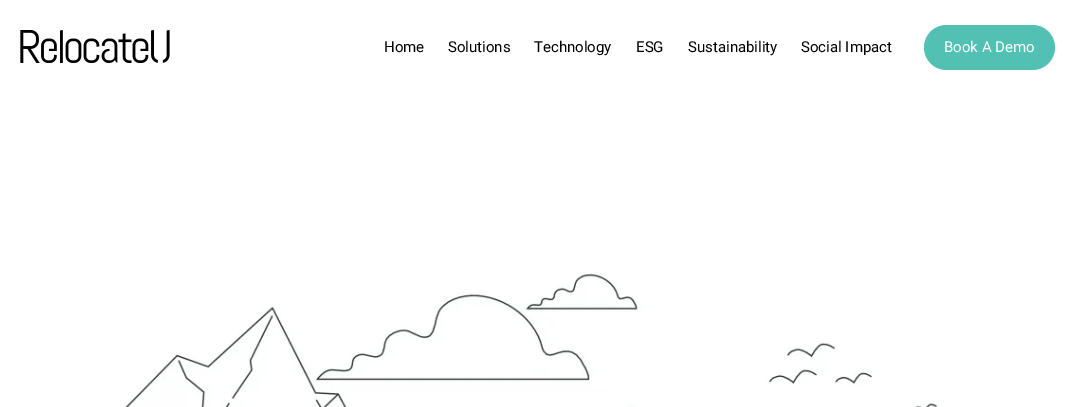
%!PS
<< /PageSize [1075 407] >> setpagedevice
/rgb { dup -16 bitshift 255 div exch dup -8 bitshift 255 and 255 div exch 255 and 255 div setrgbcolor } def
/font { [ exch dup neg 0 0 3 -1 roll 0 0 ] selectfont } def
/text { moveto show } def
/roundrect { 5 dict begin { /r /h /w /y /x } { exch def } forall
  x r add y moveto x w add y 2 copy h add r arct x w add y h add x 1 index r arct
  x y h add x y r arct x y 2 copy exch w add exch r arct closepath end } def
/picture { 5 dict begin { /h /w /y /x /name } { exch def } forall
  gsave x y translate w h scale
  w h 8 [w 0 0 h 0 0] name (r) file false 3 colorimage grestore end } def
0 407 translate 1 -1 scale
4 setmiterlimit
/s1 { /Roboto-Regular 15 font 16#000000 rgb } def
/s2 { /Roboto-Regular 15 font 16#FFFFFF rgb } def
16#FFFFFF rgb
0 0 1075 407 rectfill
(pic1.raw) 20 30 150 33 picture
s1
(Home) 384 52 text
(Solutions) 448 52 text
(Technology) 534 52 text
(ESG) 636 52 text
(Sustainability) 688 52 text
(Social Impact) 801 52 text
16#52C1B3 rgb
924 25 131 45 22.5 roundrect fill
s2
(Book A Demo) 944 52 text
(pic2.raw) 122 272 816 135 picture
showpage
